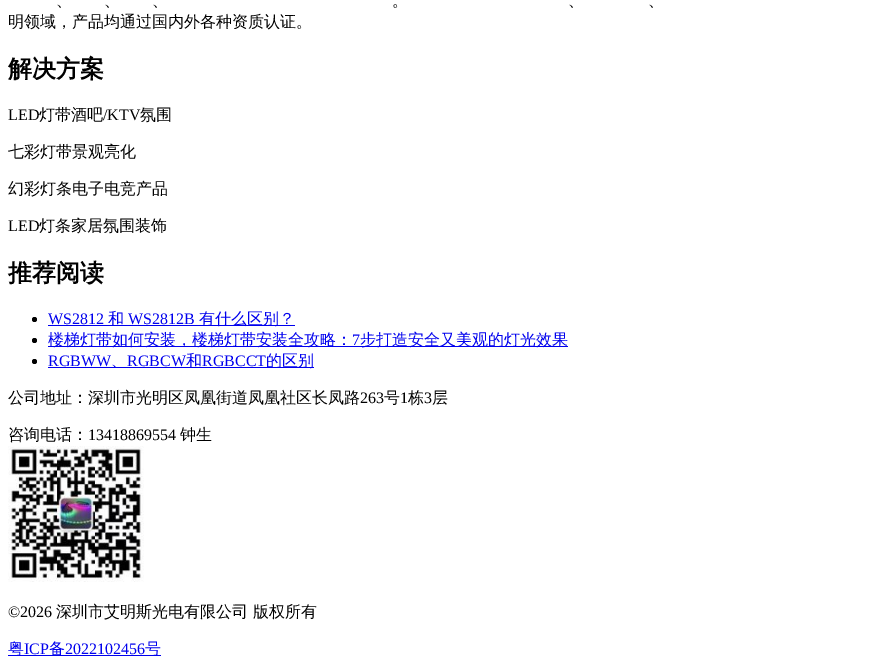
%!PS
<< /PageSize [871 667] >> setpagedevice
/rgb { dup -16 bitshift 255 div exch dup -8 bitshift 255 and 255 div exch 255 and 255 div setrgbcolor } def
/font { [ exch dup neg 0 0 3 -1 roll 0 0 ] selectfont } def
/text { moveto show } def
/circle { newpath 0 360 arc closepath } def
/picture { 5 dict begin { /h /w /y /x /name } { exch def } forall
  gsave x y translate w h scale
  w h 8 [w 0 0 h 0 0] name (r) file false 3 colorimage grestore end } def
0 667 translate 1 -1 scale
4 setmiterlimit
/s1 { /WenQuanYiZenHei-Medium 16 font 16#000000 rgb } def
/s2 { /WenQuanYiZenHei-Bold 24 font 16#000000 rgb } def
/s3 { /LiberationSerif-Regular 16 font 16#000000 rgb } def
/s4 { /LiberationSerif-Regular 16 font 16#0000EE rgb } def
/s5 { /WenQuanYiZenHei-Medium 16 font 16#0000EE rgb } def
16#FFFFFF rgb
0 0 871 667 rectfill
s1
(、) 56 6 text
(、) 104 6 text
(、) 152 6 text
(。) 392 6 text
(、) 568 6 text
(、) 648 6 text
(明领域，产品均通过国内外各种资质认证。) 8 27 text
s2
(解决方案) 8 77 text
s3
(LED) 8 120 text
s1
(灯带酒吧) 39 120 text
s3
(/KTV) 103 120 text
s1
(氛围) 140 120 text
(七彩灯带景观亮化) 8 157 text
(幻彩灯条电子电竞产品) 8 194 text
s3
(LED) 8 231 text
s1
(灯条家居氛围装饰) 39 231 text
s2
(推荐阅读) 8 281 text
34.5 319.5 2.5 circle fill
s4
(WS2812) 48 324 text
48 325 247 1 rectfill
s5
(和) 108 324 text
s4
(WS2812B) 128 324 text
s5
(有什么区别？) 199 324 text
16#000000 rgb
34.5 340.5 2.5 circle fill
16#0000EE rgb
48 346 520 1 rectfill
(楼梯灯带如何安装，楼梯灯带安装全攻略：) 48 345 text
s4
(7) 352 345 text
s5
(步打造安全又美观的灯光效果) 360 345 text
16#000000 rgb
34.5 361.5 2.5 circle fill
s4
(RGBWW) 48 366 text
(RGBCW) 127 366 text
48 367 266 1 rectfill
s5
(和) 186 366 text
s4
(RGBCCT) 202 366 text
s5
(的区别) 266 366 text
(、) 111 366 text
s1
(公司地址：深圳市光明区凤凰街道凤凰社区长凤路) 8 403 text
s3
(263) 360 403 text
s1
(号) 384 403 text
s3
(1) 400 403 text
s1
(栋) 408 403 text
s3
(3) 424 403 text
s1
(层) 432 403 text
(咨询电话：) 8 440 text
s3
(13418869554) 88 440 text
s1
(钟生) 180 440 text
(pic1.raw) 8 446 136 136 picture
s3
(©2026) 8 617 text
s1
(深圳市艾明斯光电有限公司 版权所有) 56 617 text
16#0000EE rgb
8 655 153 1 rectfill
(粤) 8 654 text
s4
(ICP) 24 654 text
s5
(备) 49 654 text
s4
(2022102456) 65 654 text
s5
(号) 145 654 text
showpage
